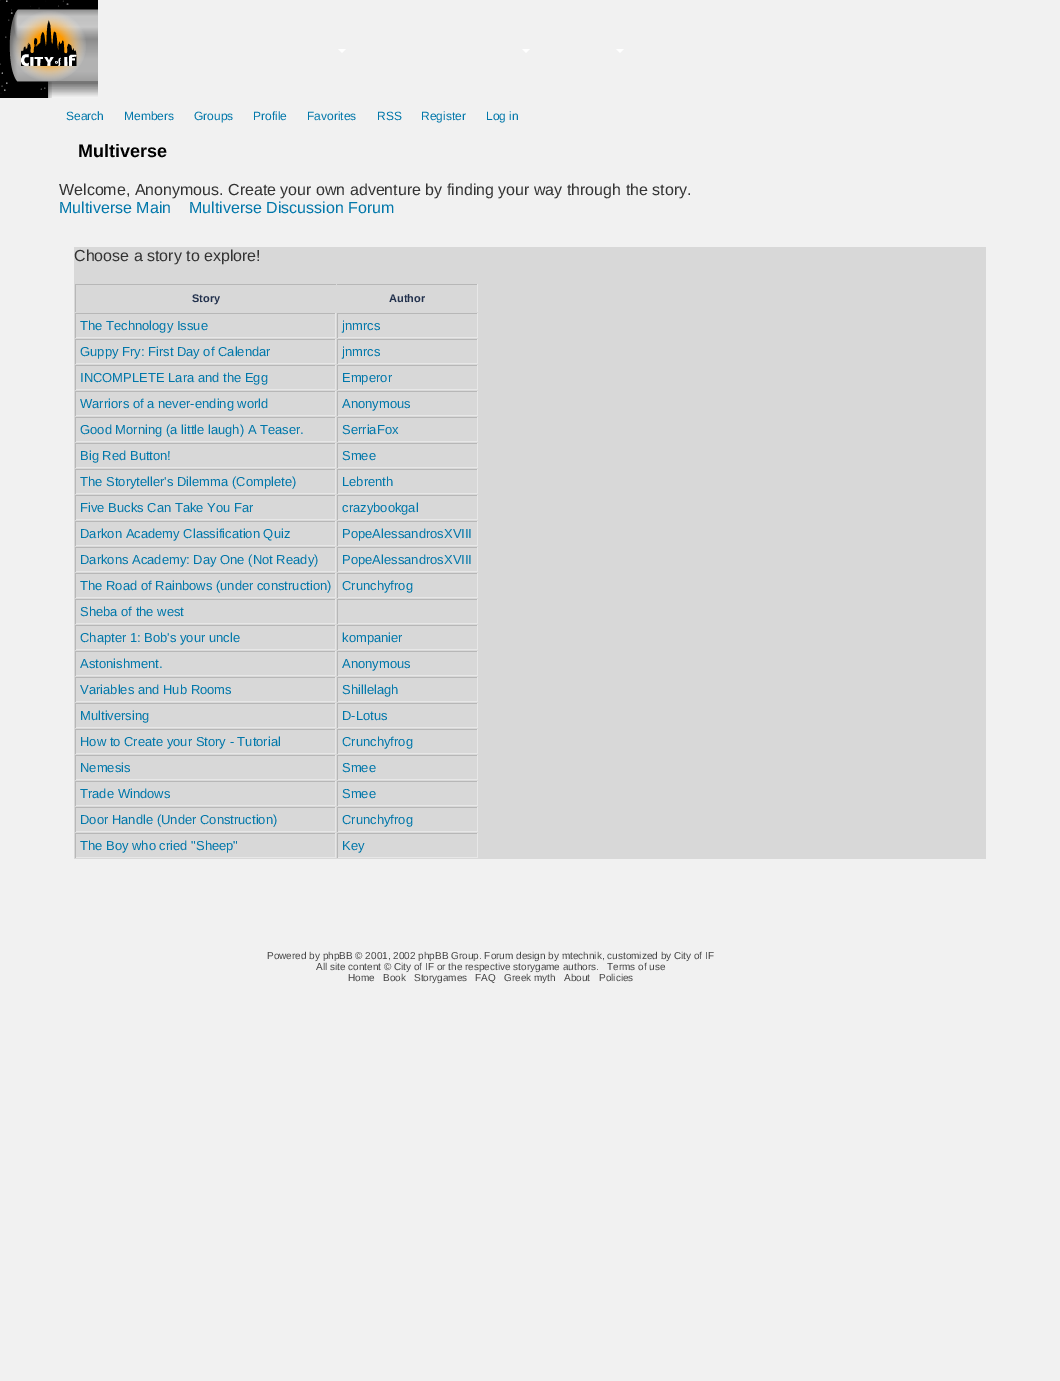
%!PS
<< /PageSize [1060 1381] >> setpagedevice
/rgb { dup -16 bitshift 255 div exch dup -8 bitshift 255 and 255 div exch 255 and 255 div setrgbcolor } def
/font { [ exch dup neg 0 0 3 -1 roll 0 0 ] selectfont } def
/text { moveto show } def
/picture { 5 dict begin { /h /w /y /x /name } { exch def } forall
  gsave x y translate w h scale
  w h 8 [w 0 0 h 0 0] name (r) file false 3 colorimage grestore end } def
0 1381 translate 1 -1 scale
4 setmiterlimit
/s1 { /LiberationSans-Regular 12 font 16#0077AA rgb } def
/s2 { /LiberationSans-Bold 18 font 16#000000 rgb } def
/s3 { /LiberationSans-Regular 16 font 16#333333 rgb } def
/s4 { /LiberationSans-Regular 16 font 16#0077AA rgb } def
/s5 { /LiberationSans-Bold 11 font 16#22314D rgb } def
/s6 { /LiberationSans-Regular 13 font 16#0077AA rgb } def
/s7 { /LiberationSans-Regular 10 font 16#444444 rgb } def
16#F1F1F1 rgb
0 0 1060 1381 rectfill
(pic1.raw) 0 0 98 98 picture
16#FFFFFF rgb
338 49 moveto 346 49 lineto 342 53 lineto closepath fill
522 49 moveto 530 49 lineto 526 53 lineto closepath fill
616 49 moveto 624 49 lineto 620 53 lineto closepath fill
s1
(Search) 66 120 text
(Members) 124 120 text
(Groups) 194 120 text
(Profile) 253 120 text
(Favorites) 307 120 text
(RSS) 377 120 text
(Register) 421 120 text
(Log in) 486 120 text
s2
(Multiverse) 78 157 text
s3
(Welcome, Anonymous. Create your own adventure by finding your way through the story.) 59 195 text
s4
(Multiverse Main) 59 213 text
(Multiverse Discussion Forum) 189 213 text
16#D8D8D8 rgb
74 247 912 612 rectfill
s3
(Choose a story to explore!) 74 261 text
16#B7B7B7 rgb
75 284 261 1 rectfill
75 284 1 28 rectfill
s5
(Story) 192 302 text
16#B7B7B7 rgb
337 284 141 1 rectfill
16#E7E7E7 rgb
477 284 1 28 rectfill
s5
(Author) 389 302 text
16#B7B7B7 rgb
75 313 261 1 rectfill
16#E7E7E7 rgb
335 313 1 25 rectfill
75 337 261 1 rectfill
16#B7B7B7 rgb
75 313 1 25 rectfill
s6
(The Technology Issue) 80 330 text
16#B7B7B7 rgb
337 313 141 1 rectfill
16#E7E7E7 rgb
477 313 1 25 rectfill
337 337 141 1 rectfill
16#B7B7B7 rgb
337 313 1 25 rectfill
s6
(jnmrcs) 342 330 text
16#B7B7B7 rgb
75 339 261 1 rectfill
16#E7E7E7 rgb
335 339 1 25 rectfill
75 363 261 1 rectfill
16#B7B7B7 rgb
75 339 1 25 rectfill
s6
(Guppy Fry: First Day of Calendar) 80 356 text
16#B7B7B7 rgb
337 339 141 1 rectfill
16#E7E7E7 rgb
477 339 1 25 rectfill
337 363 141 1 rectfill
16#B7B7B7 rgb
337 339 1 25 rectfill
s6
(jnmrcs) 342 356 text
16#B7B7B7 rgb
75 365 261 1 rectfill
16#E7E7E7 rgb
335 365 1 25 rectfill
75 389 261 1 rectfill
16#B7B7B7 rgb
75 365 1 25 rectfill
s6
(INCOMPLETE Lara and the Egg) 80 382 text
16#B7B7B7 rgb
337 365 141 1 rectfill
16#E7E7E7 rgb
477 365 1 25 rectfill
337 389 141 1 rectfill
16#B7B7B7 rgb
337 365 1 25 rectfill
s6
(Emperor) 342 382 text
16#B7B7B7 rgb
75 391 261 1 rectfill
16#E7E7E7 rgb
335 391 1 25 rectfill
75 415 261 1 rectfill
16#B7B7B7 rgb
75 391 1 25 rectfill
s6
(Warriors of a never-ending world) 80 408 text
16#B7B7B7 rgb
337 391 141 1 rectfill
16#E7E7E7 rgb
477 391 1 25 rectfill
337 415 141 1 rectfill
16#B7B7B7 rgb
337 391 1 25 rectfill
s6
(Anonymous) 342 408 text
16#B7B7B7 rgb
75 417 261 1 rectfill
16#E7E7E7 rgb
335 417 1 25 rectfill
75 441 261 1 rectfill
16#B7B7B7 rgb
75 417 1 25 rectfill
s6
(Good Morning \(a little laugh\) A Teaser.) 80 434 text
16#B7B7B7 rgb
337 417 141 1 rectfill
16#E7E7E7 rgb
477 417 1 25 rectfill
337 441 141 1 rectfill
16#B7B7B7 rgb
337 417 1 25 rectfill
s6
(SerriaFox) 342 434 text
16#B7B7B7 rgb
75 443 261 1 rectfill
16#E7E7E7 rgb
335 443 1 25 rectfill
75 467 261 1 rectfill
16#B7B7B7 rgb
75 443 1 25 rectfill
s6
(Big Red Button!) 80 460 text
16#B7B7B7 rgb
337 443 141 1 rectfill
16#E7E7E7 rgb
477 443 1 25 rectfill
337 467 141 1 rectfill
16#B7B7B7 rgb
337 443 1 25 rectfill
s6
(Smee) 342 460 text
16#B7B7B7 rgb
75 469 261 1 rectfill
16#E7E7E7 rgb
335 469 1 25 rectfill
75 493 261 1 rectfill
16#B7B7B7 rgb
75 469 1 25 rectfill
s6
(The Storyteller's Dilemma \(Complete\)) 80 486 text
16#B7B7B7 rgb
337 469 141 1 rectfill
16#E7E7E7 rgb
477 469 1 25 rectfill
337 493 141 1 rectfill
16#B7B7B7 rgb
337 469 1 25 rectfill
s6
(Lebrenth) 342 486 text
16#B7B7B7 rgb
75 495 261 1 rectfill
16#E7E7E7 rgb
335 495 1 25 rectfill
75 519 261 1 rectfill
16#B7B7B7 rgb
75 495 1 25 rectfill
s6
(Five Bucks Can Take You Far) 80 512 text
16#B7B7B7 rgb
337 495 141 1 rectfill
16#E7E7E7 rgb
477 495 1 25 rectfill
337 519 141 1 rectfill
16#B7B7B7 rgb
337 495 1 25 rectfill
s6
(crazybookgal) 342 512 text
16#B7B7B7 rgb
75 521 261 1 rectfill
16#E7E7E7 rgb
335 521 1 25 rectfill
75 545 261 1 rectfill
16#B7B7B7 rgb
75 521 1 25 rectfill
s6
(Darkon Academy Classification Quiz) 80 538 text
16#B7B7B7 rgb
337 521 141 1 rectfill
16#E7E7E7 rgb
477 521 1 25 rectfill
337 545 141 1 rectfill
16#B7B7B7 rgb
337 521 1 25 rectfill
s6
(PopeAlessandrosXVIII) 342 538 text
16#B7B7B7 rgb
75 547 261 1 rectfill
16#E7E7E7 rgb
335 547 1 25 rectfill
75 571 261 1 rectfill
16#B7B7B7 rgb
75 547 1 25 rectfill
s6
(Darkons Academy: Day One \(Not Ready\)) 80 564 text
16#B7B7B7 rgb
337 547 141 1 rectfill
16#E7E7E7 rgb
477 547 1 25 rectfill
337 571 141 1 rectfill
16#B7B7B7 rgb
337 547 1 25 rectfill
s6
(PopeAlessandrosXVIII) 342 564 text
16#B7B7B7 rgb
75 573 261 1 rectfill
16#E7E7E7 rgb
335 573 1 25 rectfill
75 597 261 1 rectfill
16#B7B7B7 rgb
75 573 1 25 rectfill
s6
(The Road of Rainbows \(under construction\)) 80 590 text
16#B7B7B7 rgb
337 573 141 1 rectfill
16#E7E7E7 rgb
477 573 1 25 rectfill
337 597 141 1 rectfill
16#B7B7B7 rgb
337 573 1 25 rectfill
s6
(Crunchyfrog) 342 590 text
16#B7B7B7 rgb
75 599 261 1 rectfill
16#E7E7E7 rgb
335 599 1 25 rectfill
75 623 261 1 rectfill
16#B7B7B7 rgb
75 599 1 25 rectfill
s6
(Sheba of the west) 80 616 text
16#B7B7B7 rgb
337 599 141 1 rectfill
16#E7E7E7 rgb
477 599 1 25 rectfill
337 623 141 1 rectfill
16#B7B7B7 rgb
337 599 1 25 rectfill
75 625 261 1 rectfill
16#E7E7E7 rgb
335 625 1 25 rectfill
75 649 261 1 rectfill
16#B7B7B7 rgb
75 625 1 25 rectfill
s6
(Chapter 1: Bob's your uncle) 80 642 text
16#B7B7B7 rgb
337 625 141 1 rectfill
16#E7E7E7 rgb
477 625 1 25 rectfill
337 649 141 1 rectfill
16#B7B7B7 rgb
337 625 1 25 rectfill
s6
(kompanier) 342 642 text
16#B7B7B7 rgb
75 651 261 1 rectfill
16#E7E7E7 rgb
335 651 1 25 rectfill
75 675 261 1 rectfill
16#B7B7B7 rgb
75 651 1 25 rectfill
s6
(Astonishment.) 80 668 text
16#B7B7B7 rgb
337 651 141 1 rectfill
16#E7E7E7 rgb
477 651 1 25 rectfill
337 675 141 1 rectfill
16#B7B7B7 rgb
337 651 1 25 rectfill
s6
(Anonymous) 342 668 text
16#B7B7B7 rgb
75 677 261 1 rectfill
16#E7E7E7 rgb
335 677 1 25 rectfill
75 701 261 1 rectfill
16#B7B7B7 rgb
75 677 1 25 rectfill
s6
(Variables and Hub Rooms) 80 694 text
16#B7B7B7 rgb
337 677 141 1 rectfill
16#E7E7E7 rgb
477 677 1 25 rectfill
337 701 141 1 rectfill
16#B7B7B7 rgb
337 677 1 25 rectfill
s6
(Shillelagh) 342 694 text
16#B7B7B7 rgb
75 703 261 1 rectfill
16#E7E7E7 rgb
335 703 1 25 rectfill
75 727 261 1 rectfill
16#B7B7B7 rgb
75 703 1 25 rectfill
s6
(Multiversing) 80 720 text
16#B7B7B7 rgb
337 703 141 1 rectfill
16#E7E7E7 rgb
477 703 1 25 rectfill
337 727 141 1 rectfill
16#B7B7B7 rgb
337 703 1 25 rectfill
s6
(D-Lotus) 342 720 text
16#B7B7B7 rgb
75 729 261 1 rectfill
16#E7E7E7 rgb
335 729 1 25 rectfill
75 753 261 1 rectfill
16#B7B7B7 rgb
75 729 1 25 rectfill
s6
(How to Create your Story - Tutorial) 80 746 text
16#B7B7B7 rgb
337 729 141 1 rectfill
16#E7E7E7 rgb
477 729 1 25 rectfill
337 753 141 1 rectfill
16#B7B7B7 rgb
337 729 1 25 rectfill
s6
(Crunchyfrog) 342 746 text
16#B7B7B7 rgb
75 755 261 1 rectfill
16#E7E7E7 rgb
335 755 1 25 rectfill
75 779 261 1 rectfill
16#B7B7B7 rgb
75 755 1 25 rectfill
s6
(Nemesis) 80 772 text
16#B7B7B7 rgb
337 755 141 1 rectfill
16#E7E7E7 rgb
477 755 1 25 rectfill
337 779 141 1 rectfill
16#B7B7B7 rgb
337 755 1 25 rectfill
s6
(Smee) 342 772 text
16#B7B7B7 rgb
75 781 261 1 rectfill
16#E7E7E7 rgb
335 781 1 25 rectfill
75 805 261 1 rectfill
16#B7B7B7 rgb
75 781 1 25 rectfill
s6
(Trade Windows) 80 798 text
16#B7B7B7 rgb
337 781 141 1 rectfill
16#E7E7E7 rgb
477 781 1 25 rectfill
337 805 141 1 rectfill
16#B7B7B7 rgb
337 781 1 25 rectfill
s6
(Smee) 342 798 text
16#B7B7B7 rgb
75 807 261 1 rectfill
16#E7E7E7 rgb
335 807 1 25 rectfill
75 831 261 1 rectfill
16#B7B7B7 rgb
75 807 1 25 rectfill
s6
(Door Handle \(Under Construction\)) 80 824 text
16#B7B7B7 rgb
337 807 141 1 rectfill
16#E7E7E7 rgb
477 807 1 25 rectfill
337 831 141 1 rectfill
16#B7B7B7 rgb
337 807 1 25 rectfill
s6
(Crunchyfrog) 342 824 text
16#B7B7B7 rgb
75 833 261 1 rectfill
16#E7E7E7 rgb
335 833 1 25 rectfill
75 857 261 1 rectfill
16#B7B7B7 rgb
75 833 1 25 rectfill
s6
(The Boy who cried "Sheep") 80 850 text
16#B7B7B7 rgb
337 833 141 1 rectfill
16#E7E7E7 rgb
477 833 1 25 rectfill
337 857 141 1 rectfill
16#B7B7B7 rgb
337 833 1 25 rectfill
s6
(Key) 342 850 text
s7
(Powered by phpBB © 2001, 2002 phpBB Group. Forum design by mtechnik, customized by City of IF) 267 959 text
(All site content © City of IF or the respective storygame authors.) 316 970 text
(Terms of use) 607 970 text
(Home) 348 981 text
(Book) 383 981 text
(Storygames) 414 981 text
(FAQ) 475 981 text
(Greek myth) 504 981 text
(About) 564 981 text
(Policies) 599 981 text
showpage
